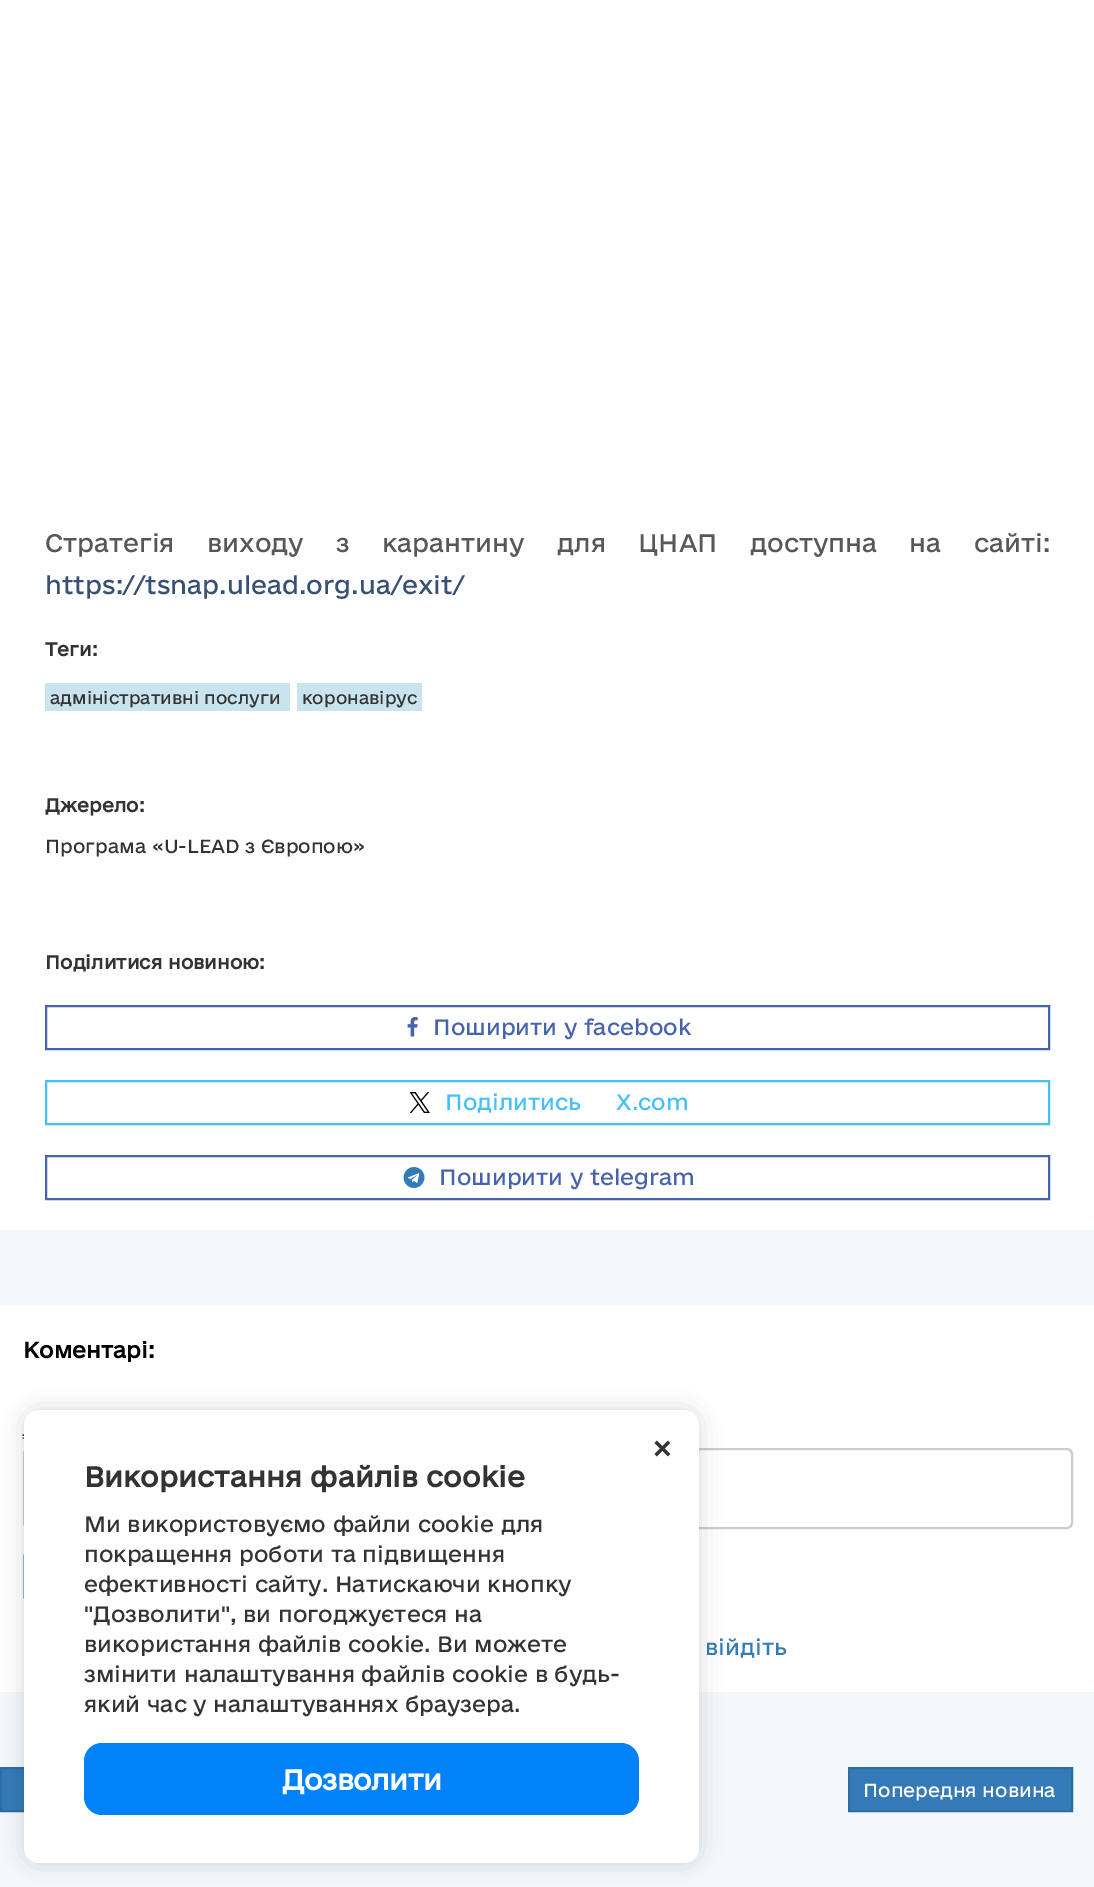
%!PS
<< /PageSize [1094 1887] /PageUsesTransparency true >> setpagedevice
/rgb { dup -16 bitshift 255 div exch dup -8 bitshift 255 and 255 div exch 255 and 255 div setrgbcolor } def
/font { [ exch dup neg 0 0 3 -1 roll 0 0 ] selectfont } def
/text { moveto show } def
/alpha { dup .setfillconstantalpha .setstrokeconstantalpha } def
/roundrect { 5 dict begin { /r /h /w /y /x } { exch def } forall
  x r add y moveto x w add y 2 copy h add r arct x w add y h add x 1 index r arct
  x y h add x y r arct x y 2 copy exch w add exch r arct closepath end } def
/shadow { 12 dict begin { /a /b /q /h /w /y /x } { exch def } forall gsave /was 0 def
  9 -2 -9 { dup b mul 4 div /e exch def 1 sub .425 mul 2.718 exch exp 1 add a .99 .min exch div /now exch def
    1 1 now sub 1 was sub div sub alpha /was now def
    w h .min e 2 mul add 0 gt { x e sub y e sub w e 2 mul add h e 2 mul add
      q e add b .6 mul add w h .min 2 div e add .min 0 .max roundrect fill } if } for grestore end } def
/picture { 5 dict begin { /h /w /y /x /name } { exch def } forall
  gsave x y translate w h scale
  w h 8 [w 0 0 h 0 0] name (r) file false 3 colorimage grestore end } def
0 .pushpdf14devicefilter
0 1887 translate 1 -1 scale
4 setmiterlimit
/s1 { /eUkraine-Regular 24 font 16#385074 rgb } def
/s2 { /eUkraine-Bold 18 font 16#333333 rgb } def
/s3 { /eUkraine-Regular 16.5 font 16#333333 rgb } def
/s4 { /eUkraine-Regular 18 font 16#333333 rgb } def
/s5 { /eUkraine-Regular 21 font 16#4863AE rgb } def
/s6 { /eUkraine-Regular 21 font 16#46C0FB rgb } def
/s7 { /eUkraine-Bold 21 font 16#000000 rgb } def
/s8 { /eUkraine-Regular 21 font 16#337AB7 rgb } def
/s9 { /eUkraine-Regular 18 font 16#FFFFFF rgb } def
/s10 { /eUkraine-Bold 27 font 16#333333 rgb } def
/s11 { /eUkraine-Regular 21 font 16#333333 rgb } def
16#F3F8FC rgb
0 0 1094 1887 rectfill
16#FFFFFF rgb
0 0 1094 1230 rectfill
/eUkraine-Regular 24 font
16#575757 rgb
45 552 moveto 25 0 32 (Стратегія виходу з карантину для ЦНАП доступна на сайті:) widthshow
s1
(https://tsnap.ulead.org.ua/exit/) 45 594 text
s2
(Теги:) 45 656 text
16#C9E4EF rgb
45 683 245 28 rectfill
s3
(адміністративні послуги) 50 704 text
16#C9E4EF rgb
297 683 125 28 rectfill
s3
(коронавірус) 302 704 text
s2
(Джерело:) 45 812 text
s4
(Програма «U-LEAD з Європою») 45 853 text
s2
(Поділитися новиною:) 45 969 text
16#4863AE rgb
2 setlinewidth
46 1006 1003 43 rectstroke
(pic1.raw) 407 1017 11 20 picture
s5
(Поширити у facebook) 433 1035 text
16#46C0FB rgb
46 1081 1003 43 rectstroke
(pic2.raw) 410 1092 20 21 picture
(Поділитись) 445 1110 text
(X.com) 616 1110 text
16#4863AE rgb
46 1156 1003 43 rectstroke
(pic3.raw) 403 1167 22 21 picture
(Поширити у telegram) 439 1185 text
16#FFFFFF rgb
0 1305 1094 387 rectfill
s7
(Коментарі:) 23 1358 text
16#333333 rgb
1.5 setlinewidth
22.5 1435 moveto 24 1435 lineto 25.5 1435 moveto 27 1435 lineto 28.5 1435 moveto 30 1435 lineto 31.5 1435 moveto 32.5 1435 lineto stroke
16#777777 rgb
22.5 1438 moveto 24 1438 lineto 25.5 1438 moveto 27 1438 lineto 28.5 1438 moveto 30 1438 lineto 31.5 1438 moveto 33 1438 lineto stroke
16#ECECEC rgb
28 1450 moveto 1066 1450 lineto 1069 1450 1071 1453 1071 1455 curveto 1071 1452 1069 1449 1066 1449 curveto 29 1449 lineto 26 1449 24 1452 24 1455 curveto 24 1453 26 1450 28 1450 curveto closepath fill
16#CCCCCC rgb
2 setlinewidth
24 1449 1048 79 5 roundrect stroke
16#97B6D2 rgb
24 1552 172 49 5 roundrect stroke
s8
(війдіть) 705 1655 text
2 1769 22 41 rectfill
16#2E6DA4 rgb
1 1768 207 43 rectstroke
16#337AB7 rgb
849 1768 moveto 1072 1768 lineto 1072 1811 lineto 849 1811 lineto closepath gsave fill grestore
16#2E6DA4 rgb
stroke
s9
(Попередня новина) 863 1797 text
16#000000 rgb
24 1410 675 453 15 11 0.15 shadow
16#FFFFFF rgb
24 1410 675 453 15 roundrect fill
/eUkraine-Regular 36 font
16#333333 rgb
gsave 644 1449 translate 45 rotate 0 0 moveto (+) show grestore
s10
(Використання файлів cookie) 84 1487 text
s11
(Ми використовуємо файли cookie для) 84 1532 text
(покращення роботи та підвищення) 84 1562 text
(ефективності сайту. Натискаючи кнопку) 84 1592 text
("Дозволити", ви погоджуєтеся на) 84 1622 text
(використання файлів cookie. Ви можете) 84 1652 text
(змінити налаштування файлів cookie в будь-) 84 1682 text
(який час у налаштуваннях браузера.) 84 1712 text
16#0182F9 rgb
84 1743 555 72 18 roundrect fill
/eUkraine-Bold 27 font
16#FFFFFF rgb
282 1790 moveto -0.5 0 (Дозволити) ashow
.poppdf14devicefilter showpage
